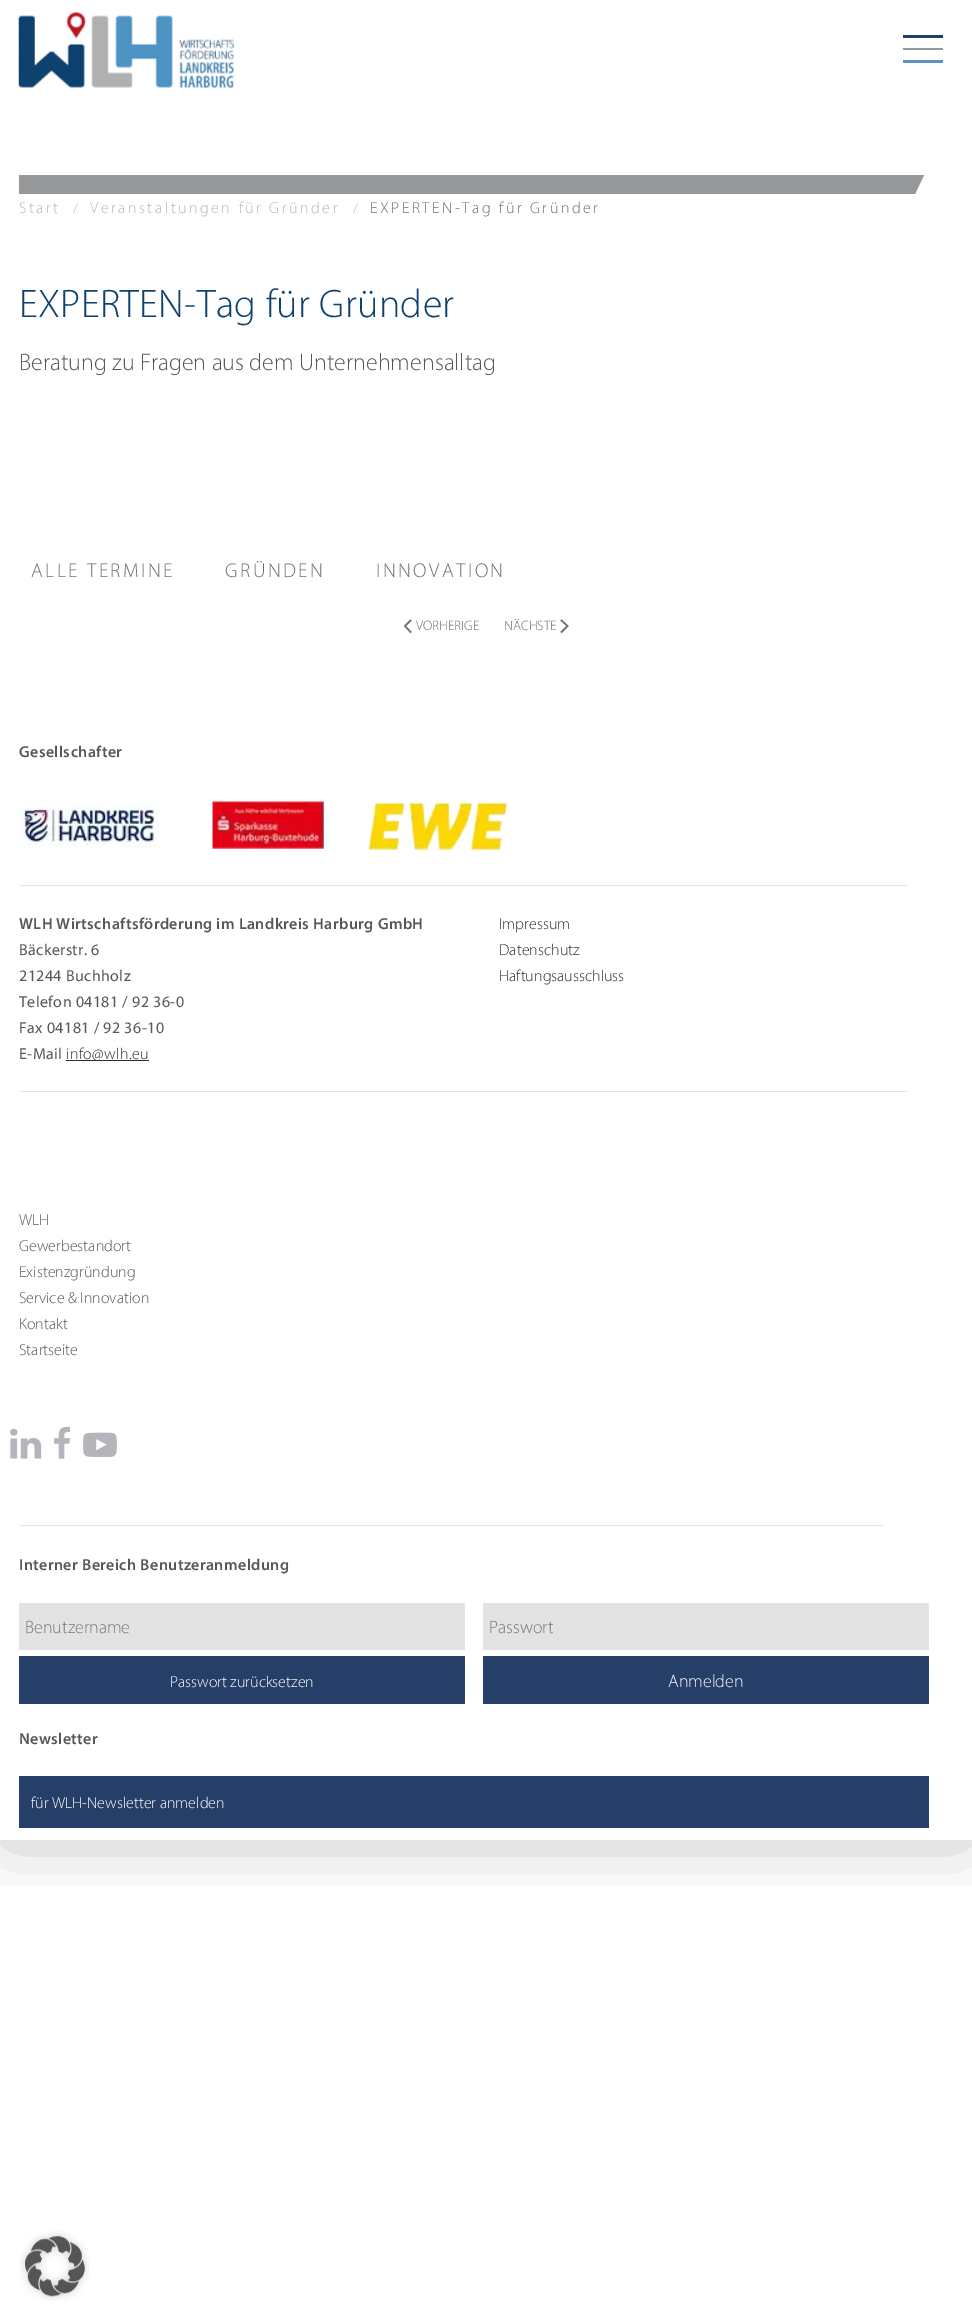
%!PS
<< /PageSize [972 2321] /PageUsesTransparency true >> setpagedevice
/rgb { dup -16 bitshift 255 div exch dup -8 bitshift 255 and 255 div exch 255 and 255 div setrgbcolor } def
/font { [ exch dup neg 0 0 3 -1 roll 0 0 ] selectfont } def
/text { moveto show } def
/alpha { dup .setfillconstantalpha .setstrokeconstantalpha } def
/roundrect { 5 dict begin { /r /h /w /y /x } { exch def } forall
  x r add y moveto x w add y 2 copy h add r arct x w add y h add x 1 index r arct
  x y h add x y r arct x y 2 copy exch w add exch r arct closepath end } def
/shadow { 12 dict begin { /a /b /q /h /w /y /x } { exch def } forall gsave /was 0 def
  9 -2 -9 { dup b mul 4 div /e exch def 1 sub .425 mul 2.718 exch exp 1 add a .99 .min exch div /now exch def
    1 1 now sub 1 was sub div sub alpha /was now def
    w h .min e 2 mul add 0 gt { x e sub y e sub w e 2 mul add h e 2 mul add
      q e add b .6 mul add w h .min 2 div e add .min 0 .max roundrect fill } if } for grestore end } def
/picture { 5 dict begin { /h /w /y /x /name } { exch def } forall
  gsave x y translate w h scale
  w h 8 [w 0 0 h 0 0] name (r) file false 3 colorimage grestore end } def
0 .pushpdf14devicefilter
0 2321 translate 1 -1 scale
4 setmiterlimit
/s1 { /Myriad-Light 13.75 font 16#B4B5BA rgb } def
/s2 { /Myriad-Light 24 font 16#575756 rgb } def
/s3 { /Myriad-Light 13.75 font 16#6C6D74 rgb } def
/s4 { /Myriad-Light 16 font 16#2D2E33 rgb } def
/s5 { /Myriad-Light 16 font 16#575756 rgb } def
/s6 { /Myriad-Light 18 font 16#757575 rgb } def
/s7 { /Myriad-Light 16 font 16#FFFFFF rgb } def
/s8 { /Myriad-Light 18 font 16#FFFFFF rgb } def
16#FFFFFF rgb
0 0 972 2321 rectfill
gsave
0 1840 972 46 rectclip
16#000000 rgb
10 10 953 1820 0 36 0.34 shadow
grestore
(pic1.raw) 18 12 216 76 picture
16#1D406C rgb
903 35 40 3 rectfill
16#979999 rgb
903 48 40 2 rectfill
16#5C91C0 rgb
903 60 40 3 rectfill
16#979899 rgb
19 175 886 19 rectfill
905 175 moveto 924 175 lineto 915 194 lineto 896.5 194 lineto closepath fill
/Myriad-Light 16 font
16#B4B5BA rgb
19 213 moveto 2.5 0 (Start) ashow
s1
(/) 73 213 text
/Myriad-Light 16 font
90 213 moveto 2.5 0 (Veranstaltungen für Gründer) ashow
s1
(/) 353 213 text
/Myriad-Light 16 font
16#6C6D74 rgb
370 213 moveto 2.5 0 (EXPERTEN-Tag für Gründer) ashow
/Myriad-Light 40 font
16#0C416F rgb
19 317 moveto 0.4 0 (EXPERTEN-Tag für Gründer) ashow
s2
(Beratung zu Fragen aus dem Unternehmensalltag) 19 370 text
/Myriad-Light 20 font
16#6C6D74 rgb
31 577 moveto 2.5 0 (ALLE TERMINE) ashow
225 577 moveto 2.5 0 (GRÜNDEN) ashow
376 577 moveto 2.5 0 (INNOVATION) ashow
1.5 setlinewidth
411 620 moveto 405 626 lineto 411 632.5 lineto stroke
s3
(VORHERIGE) 416 630 text
(NÄCHSTE) 504 630 text
561 620 moveto 567.5 626 lineto 561 632.5 lineto stroke
/Myriad-SemiBold 16 font
16#575756 rgb
19 757 moveto 0.4 0 (Gesellschafter) ashow
(pic2.raw) 19 801 489 50 picture
16#E5E5E7 rgb
19 885 889 1 rectfill
16#575756 rgb
19 929 moveto 0.4 0 (WLH Wirtschaftsförderung im Landkreis Harburg GmbH) ashow
/Myriad-Regular 16 font
19 955 moveto 0.4 0 (Bäckerstr. 6) ashow
19 981 moveto 0.4 0 (21244 Buchholz) ashow
19 1007 moveto 0.4 0 (Telefon 04181 / 92 36-0) ashow
19 1033 moveto 0.4 0 (Fax 04181 / 92 36-10) ashow
19 1059 moveto 0.4 0 (E-Mail) ashow
16#2D2E33 rgb
66 1060 83 1 rectfill
/Myriad-Light 16 font
66 1059 moveto 0.4 0 (info@wlh.eu) ashow
(Impressum) 499 929 text
(Datenschutz) 499 955 text
(Haftungsausschluss) 499 981 text
16#E5E5E7 rgb
19 1091 889 1 rectfill
s5
(WLH) 19 1225 text
(Gewerbestandort) 19 1251 text
(Existenzgründung) 19 1277 text
(Service & Innovation) 19 1303 text
(Kontakt) 19 1329 text
(Startseite) 19 1355 text
(pic3.raw) 10 1428 32 31 picture
(pic4.raw) 54 1426 16 33 picture
(pic5.raw) 83 1432 34 25 picture
16#E5E5E7 rgb
19 1525 865 1 rectfill
/Myriad-SemiBold 16 font
16#575756 rgb
19 1570 moveto 0.4 0 (Interner Bereich Benutzeranmeldung) ashow
16#E3E3E3 rgb
19 1603 446 47 rectfill
s6
(Benutzername) 25 1633 text
16#E3E3E3 rgb
483 1603 446 47 rectfill
s6
(Passwort) 489 1633 text
16#263F69 rgb
19 1656 446 48 rectfill
s7
(Passwort zurücksetzen) 170 1687 text
16#263F69 rgb
483 1656 446 48 rectfill
s8
(Anmelden) 668 1687 text
/Myriad-SemiBold 16 font
16#575756 rgb
19 1744 moveto 0.4 0 (Newsletter) ashow
16#263F69 rgb
19 1776 910 52 rectfill
s7
(für WLH-Newsletter anmelden) 31 1808 text
(pic6.raw) 20 2231 70 70 picture
.poppdf14devicefilter showpage
